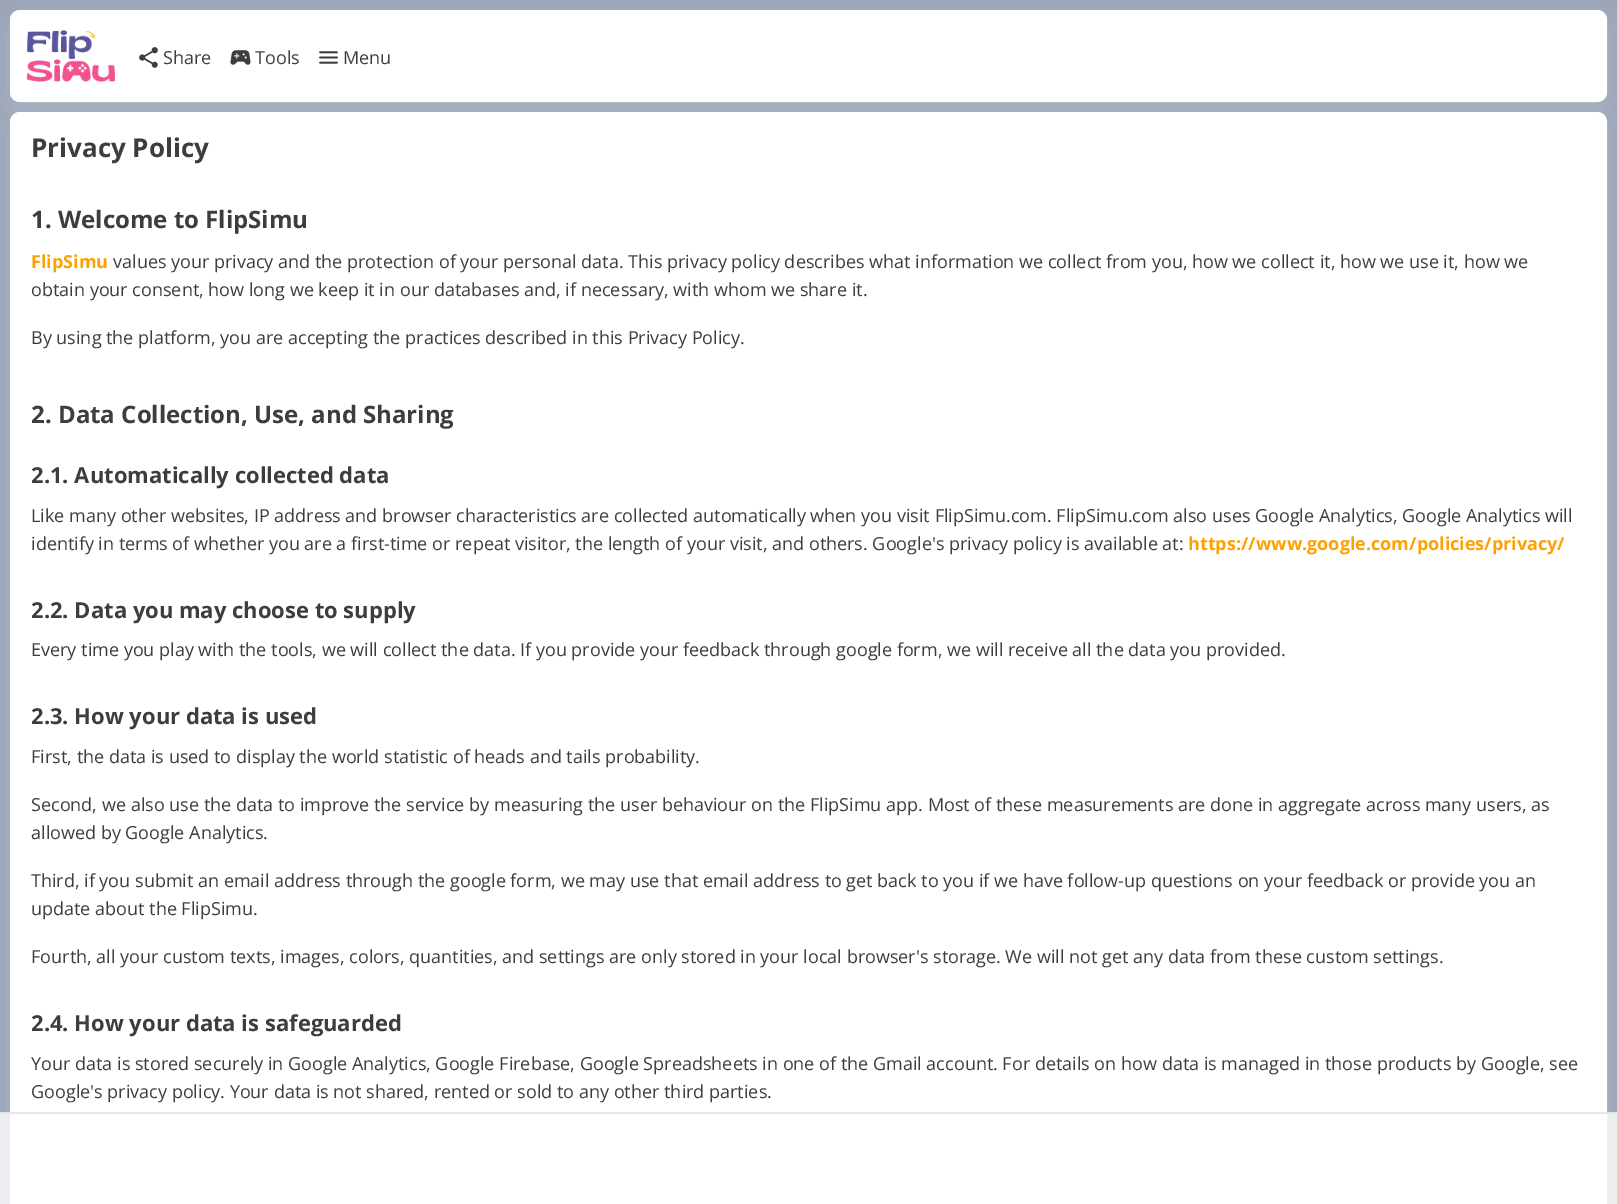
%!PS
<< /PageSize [1617 1204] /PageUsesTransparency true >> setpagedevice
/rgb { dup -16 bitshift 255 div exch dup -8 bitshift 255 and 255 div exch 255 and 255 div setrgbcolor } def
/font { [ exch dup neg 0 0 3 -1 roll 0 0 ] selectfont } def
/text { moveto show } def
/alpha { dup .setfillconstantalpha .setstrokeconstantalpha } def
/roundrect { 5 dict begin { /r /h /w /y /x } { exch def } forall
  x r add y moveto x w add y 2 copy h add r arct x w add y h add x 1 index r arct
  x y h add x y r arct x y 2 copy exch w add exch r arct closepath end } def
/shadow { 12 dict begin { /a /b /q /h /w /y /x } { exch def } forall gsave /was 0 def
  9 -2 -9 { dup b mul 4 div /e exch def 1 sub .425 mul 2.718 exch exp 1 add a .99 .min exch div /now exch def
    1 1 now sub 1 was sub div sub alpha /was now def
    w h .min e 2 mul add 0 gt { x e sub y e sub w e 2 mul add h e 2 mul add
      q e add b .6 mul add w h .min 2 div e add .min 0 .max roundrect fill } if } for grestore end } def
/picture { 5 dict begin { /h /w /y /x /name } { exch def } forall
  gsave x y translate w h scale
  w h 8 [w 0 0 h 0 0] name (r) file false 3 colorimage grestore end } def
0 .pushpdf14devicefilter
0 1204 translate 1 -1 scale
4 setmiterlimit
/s1 { /OpenSans-Regular 18 font 16#3D3D3D rgb } def
/s2 { /OpenSans-Bold 26 font 16#3D3D3D rgb } def
/s3 { /OpenSans-Bold 24 font 16#3D3D3D rgb } def
/s4 { /OpenSans-Bold 18 font 16#FFA000 rgb } def
/s5 { /OpenSans-Bold 22 font 16#3D3D3D rgb } def
16#9BA4B5 rgb
0 0 1617 1204 rectfill
16#FFFFFF rgb
10 120 1597 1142 10 16 0.15 shadow
10 112 1597 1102 10 roundrect fill
0.3 alpha
10.5 112.5 1596 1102 9.5 roundrect stroke
1 alpha
10 18 1597 92 10 16 0.15 shadow
10 10 1597 92 10 roundrect fill
0.3 alpha
10.5 10.5 1596 91 9.5 roundrect stroke
1 alpha
(pic1.raw) 26 30 90 52 picture
(pic2.raw) 139 47 19 21 picture
s1
(Share) 163 64 text
(pic3.raw) 230 50 21 15 picture
(Tools) 255 64 text
(pic4.raw) 319 51 19 13 picture
(Menu) 343 64 text
s2
(Privacy Policy) 31 157 text
s3
(1. Welcome to FlipSimu) 31 228 text
s4
(FlipSimu) 31 268 text
s1
(values your privacy and the protection of your personal data. This privacy policy describes what information we collect from you, how we collect it, how we use it, how we) 113 268 text
(obtain your consent, how long we keep it in our databases and, if necessary, with whom we share it.) 31 296 text
(By using the platform, you are accepting the practices described in this Privacy Policy.) 31 344 text
s3
(2. Data Collection, Use, and Sharing) 31 423 text
s5
(2.1. Automatically collected data) 31 483 text
s1
(Like many other websites, IP address and browser characteristics are collected automatically when you visit FlipSimu.com. FlipSimu.com also uses Google Analytics, Google Analytics will) 31 522 text
(identify in terms of whether you are a first-time or repeat visitor, the length of your visit, and others. Google's privacy policy is available at:) 31 550 text
s4
(https://www.google.com/policies/privacy/) 1188 550 text
s5
(2.2. Data you may choose to supply) 31 618 text
s1
(Every time you play with the tools, we will collect the data. If you provide your feedback through google form, we will receive all the data you provided.) 31 656 text
s5
(2.3. How your data is used) 31 724 text
s1
(First, the data is used to display the world statistic of heads and tails probability.) 31 763 text
(Second, we also use the data to improve the service by measuring the user behaviour on the FlipSimu app. Most of these measurements are done in aggregate across many users, as) 31 811 text
(allowed by Google Analytics.) 31 839 text
(Third, if you submit an email address through the google form, we may use that email address to get back to you if we have follow-up questions on your feedback or provide you an) 31 887 text
(update about the FlipSimu.) 31 915 text
(Fourth, all your custom texts, images, colors, quantities, and settings are only stored in your local browser's storage. We will not get any data from these custom settings.) 31 963 text
s5
(2.4. How your data is safeguarded) 31 1031 text
s1
(Your data is stored securely in Google Analytics, Google Firebase, Google Spreadsheets in one of the Gmail account. For details on how data is managed in those products by Google, see) 31 1070 text
(Google's privacy policy. Your data is not shared, rented or sold to any other third parties.) 31 1098 text
0.8 alpha
16#FFFFFF rgb
0 1112 1617 92 rectfill
16#E1E1E1 rgb
0 1112 1617 2 rectfill
.poppdf14devicefilter showpage
